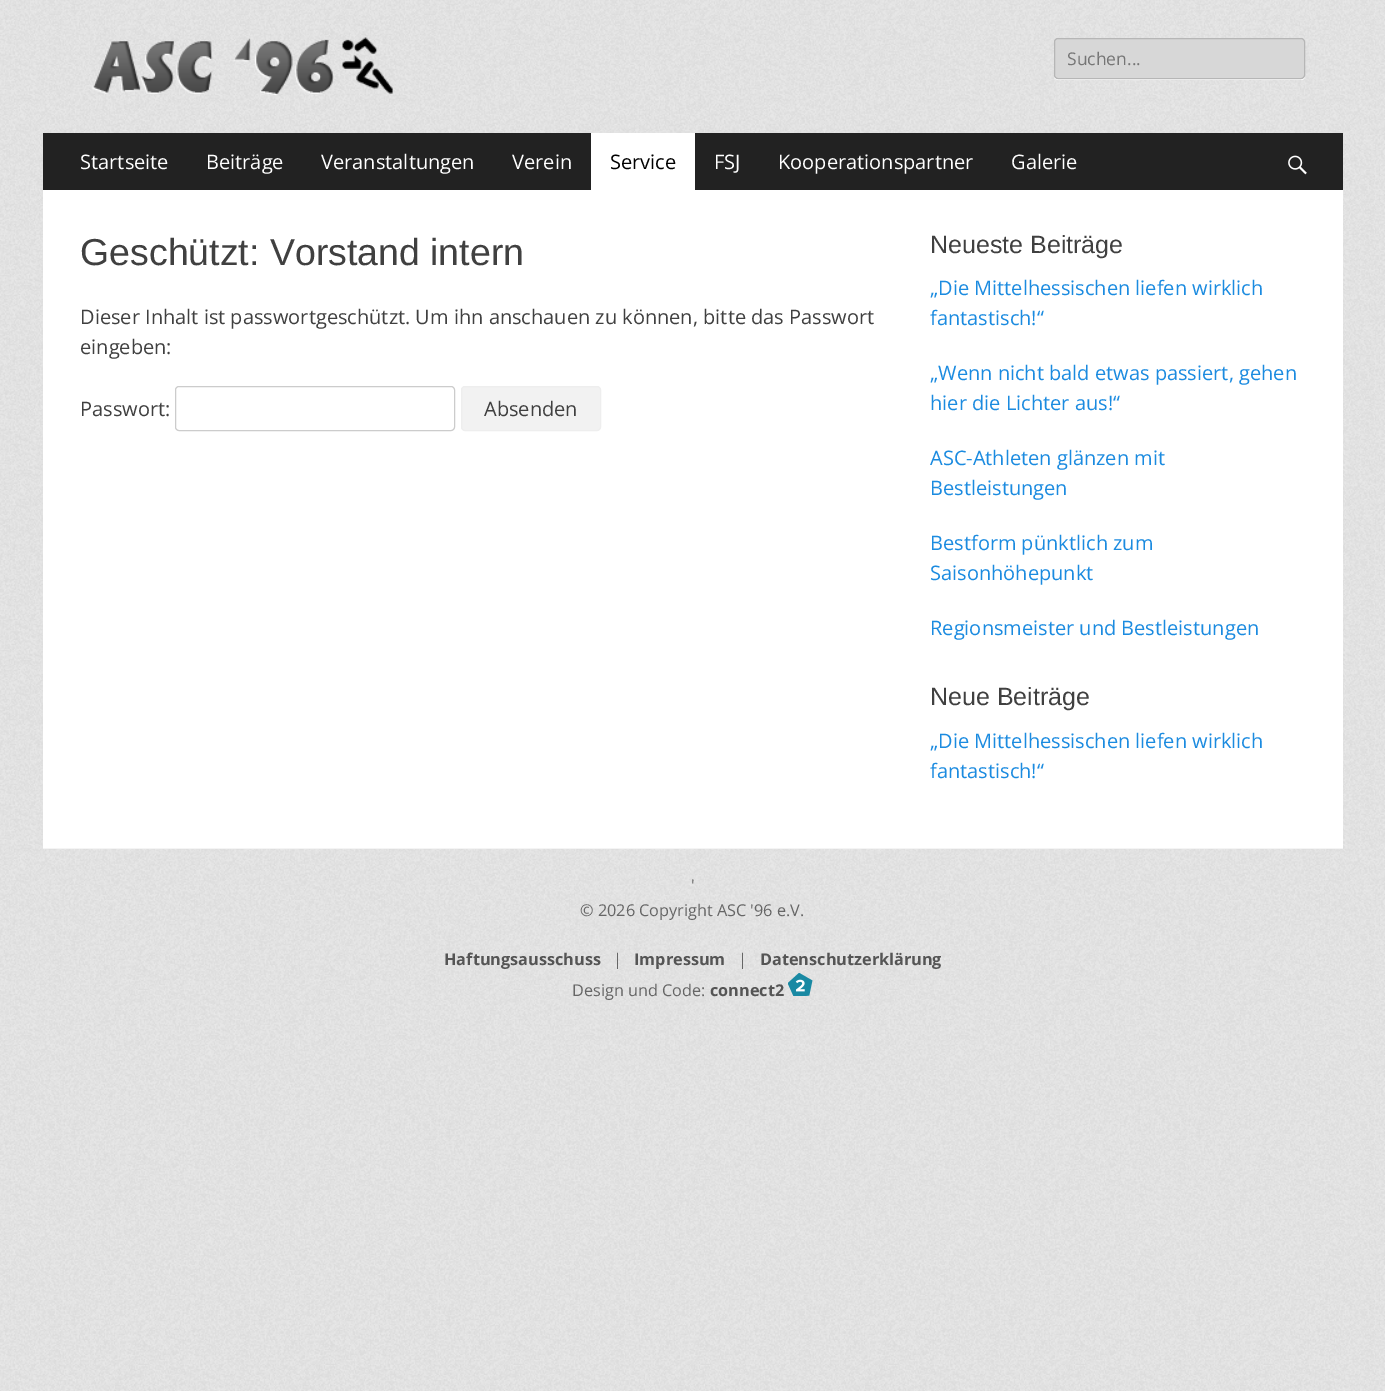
%!PS
<< /PageSize [1385 1391] >> setpagedevice
/rgb { dup -16 bitshift 255 div exch dup -8 bitshift 255 and 255 div exch 255 and 255 div setrgbcolor } def
/font { [ exch dup neg 0 0 3 -1 roll 0 0 ] selectfont } def
/text { moveto show } def
/roundrect { 5 dict begin { /r /h /w /y /x } { exch def } forall
  x r add y moveto x w add y 2 copy h add r arct x w add y h add x 1 index r arct
  x y h add x y r arct x y 2 copy exch w add exch r arct closepath end } def
/picture { 5 dict begin { /h /w /y /x /name } { exch def } forall
  gsave x y translate w h scale
  w h 8 [w 0 0 h 0 0] name (r) file false 3 colorimage grestore end } def
0 1391 translate 1 -1 scale
4 setmiterlimit
/s1 { /OpenSans-Regular 17.5 font 16#757575 rgb } def
/s2 { /OpenSans-Regular 20 font 16#FFFFFF rgb } def
/s3 { /OpenSans-Regular 20 font 16#000000 rgb } def
/s4 { /LiberationSans-Regular 37.5 font 16#404040 rgb } def
/s5 { /OpenSans-Regular 20 font 16#404040 rgb } def
/s6 { /LiberationSans-Regular 25 font 16#404040 rgb } def
/s7 { /OpenSans-Regular 20 font 16#1B8BE0 rgb } def
/s8 { /OpenSans-Regular 16.25 font 16#666666 rgb } def
/s9 { /OpenSans-Bold 16.25 font 16#555555 rgb } def
16#FFFFFF rgb
0 0 1385 1391 rectfill
(pic1.raw) 0 0 1385 1391 picture
(pic2.raw) 92 37 301 58 picture
1054 76 moveto 1055 79 lineto 1058 80 lineto 1301 80 lineto 1304 80 1305 78 1305 75 curveto 1305 77 1303 79 1301 79 curveto 1058 79 lineto 1056 79 1055 78 1054 76 curveto closepath fill
16#D7D7D7 rgb
1054.5 38.5 250 40 3.5 roundrect gsave fill grestore
16#B6B6B6 rgb
stroke
s1
(Suchen...) 1067 65 text
16#222222 rgb
43 133 1300 57 rectfill
s2
(Startseite) 80 169 text
(Beiträge) 206 169 text
(Veranstaltungen) 321 169 text
(Verein) 512 169 text
591 133 104 57 rectfill
s3
(Service) 610 169 text
s2
(FSJ) 714 169 text
(Kooperationspartner) 778 169 text
(Galerie) 1011 169 text
(pic3.raw) 1288 155 19 20 picture
43 190 1300 658 rectfill
s4
(Geschützt: Vorstand intern) 80 265 text
s5
(Dieser Inhalt ist passwortgeschützt. Um ihn anschauen zu können, bitte das Passwort) 80 324 text
(eingeben:) 80 354 text
(Passwort:) 80 416 text
16#CCCCCC rgb
175.5 386.5 279 44 3.5 roundrect stroke
16#F2F2F2 rgb
461.5 386.5 139 44 3.5 roundrect gsave fill grestore
16#EEEEEE rgb
stroke
s5
(Absenden) 484 416 text
s6
(Neueste Beiträge) 930 253 text
s7
(„Die Mittelhessischen liefen wirklich) 930 295 text
(fantastisch!“) 930 325 text
(„Wenn nicht bald etwas passiert, gehen) 930 380 text
(hier die Lichter aus!“) 930 410 text
(ASC-Athleten glänzen mit) 930 465 text
(Bestleistungen) 930 495 text
(Bestform pünktlich zum) 930 550 text
(Saisonhöhepunkt) 930 580 text
(Regionsmeister und Bestleistungen) 930 635 text
s6
(Neue Beiträge) 930 705 text
s7
(„Die Mittelhessischen liefen wirklich) 930 748 text
(fantastisch!“) 930 778 text
16#F4F4F4 rgb
43 848 1300 1 rectfill
s8
(') 691 891 text
(© 2026 Copyright ASC '96 e.V.) 580 916 text
s9
(Haftungsausschuss) 444 965 text
s8
(|) 613 965 text
s9
(Impressum) 634 965 text
s8
(|) 738 965 text
s9
(Datenschutzerklärung) 760 965 text
s8
(Design und Code:) 572 996 text
s9
(connect2) 710 996 text
(pic4.raw) 788 973 25 23 picture
showpage
